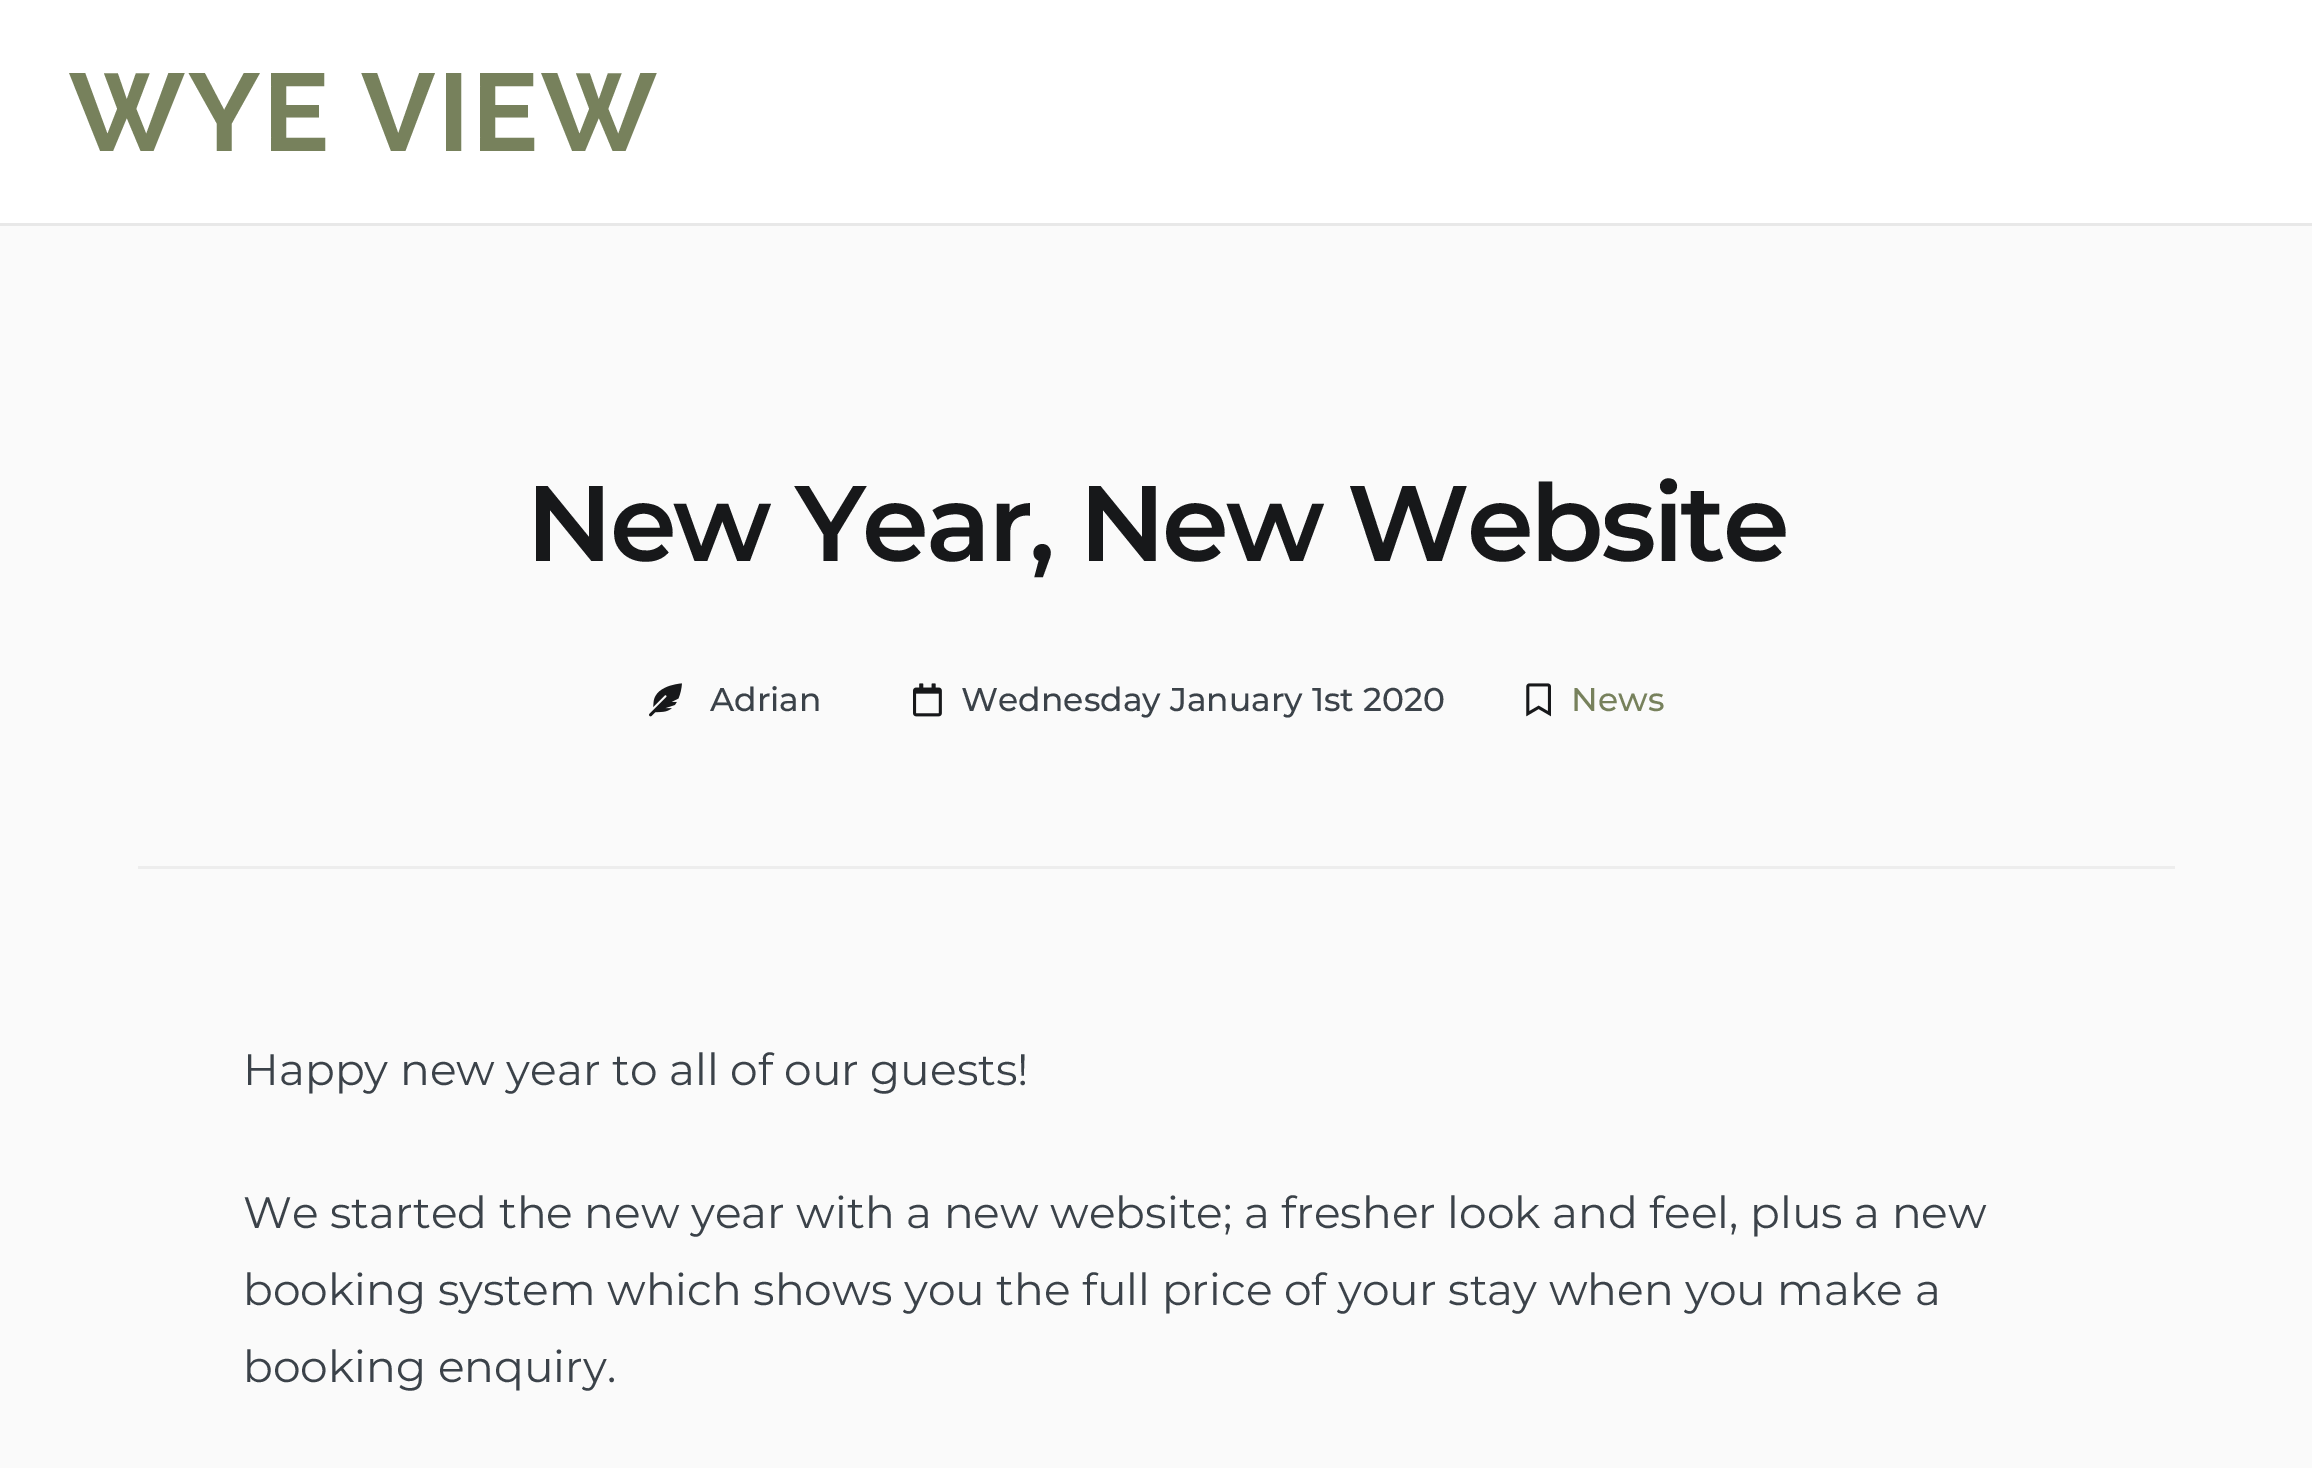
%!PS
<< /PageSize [2312 1468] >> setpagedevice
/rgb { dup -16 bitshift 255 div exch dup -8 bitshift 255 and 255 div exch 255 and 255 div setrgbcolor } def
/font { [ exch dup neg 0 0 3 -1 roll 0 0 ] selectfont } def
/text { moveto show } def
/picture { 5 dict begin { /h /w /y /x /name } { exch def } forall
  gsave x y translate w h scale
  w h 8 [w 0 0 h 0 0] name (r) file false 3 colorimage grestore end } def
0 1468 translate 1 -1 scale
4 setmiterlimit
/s1 { /Montserrat-Medium 33 font 16#3B4249 rgb } def
/s2 { /Montserrat-Medium 33 font 16#77815C rgb } def
/s3 { /Montserrat-Regular 44 font 16#3B4249 rgb } def
16#FAFAFA rgb
0 0 2312 1468 rectfill
16#FFFFFF rgb
0 0 2312 223 rectfill
/Raleway-Bold 110 font
16#77815C rgb
69 151 moveto 2.75 0 (WYE VIEW) ashow
16#E8E8E8 rgb
0 223 2312 3 rectfill
16#EDEDED rgb
138 866 2037 3 rectfill
/Montserrat-SemiBold 107.25 font
16#17181A rgb
526 561 moveto -3.25 0 (New Year, New Website) ashow
(pic1.raw) 649 683 33 34 picture
s1
(Adrian) 710 711 text
(pic2.raw) 913 683 29 34 picture
(Wednesday January 1st 2020) 961 711 text
(pic3.raw) 1526 683 25 34 picture
s2
(News) 1571 711 text
s3
(Happy new year to all of our guests!) 243 1085 text
(We started the new year with a new website; a fresher look and feel, plus a new) 243 1228 text
(booking system which shows you the full price of your stay when you make a) 243 1305 text
(booking enquiry.) 243 1382 text
showpage
